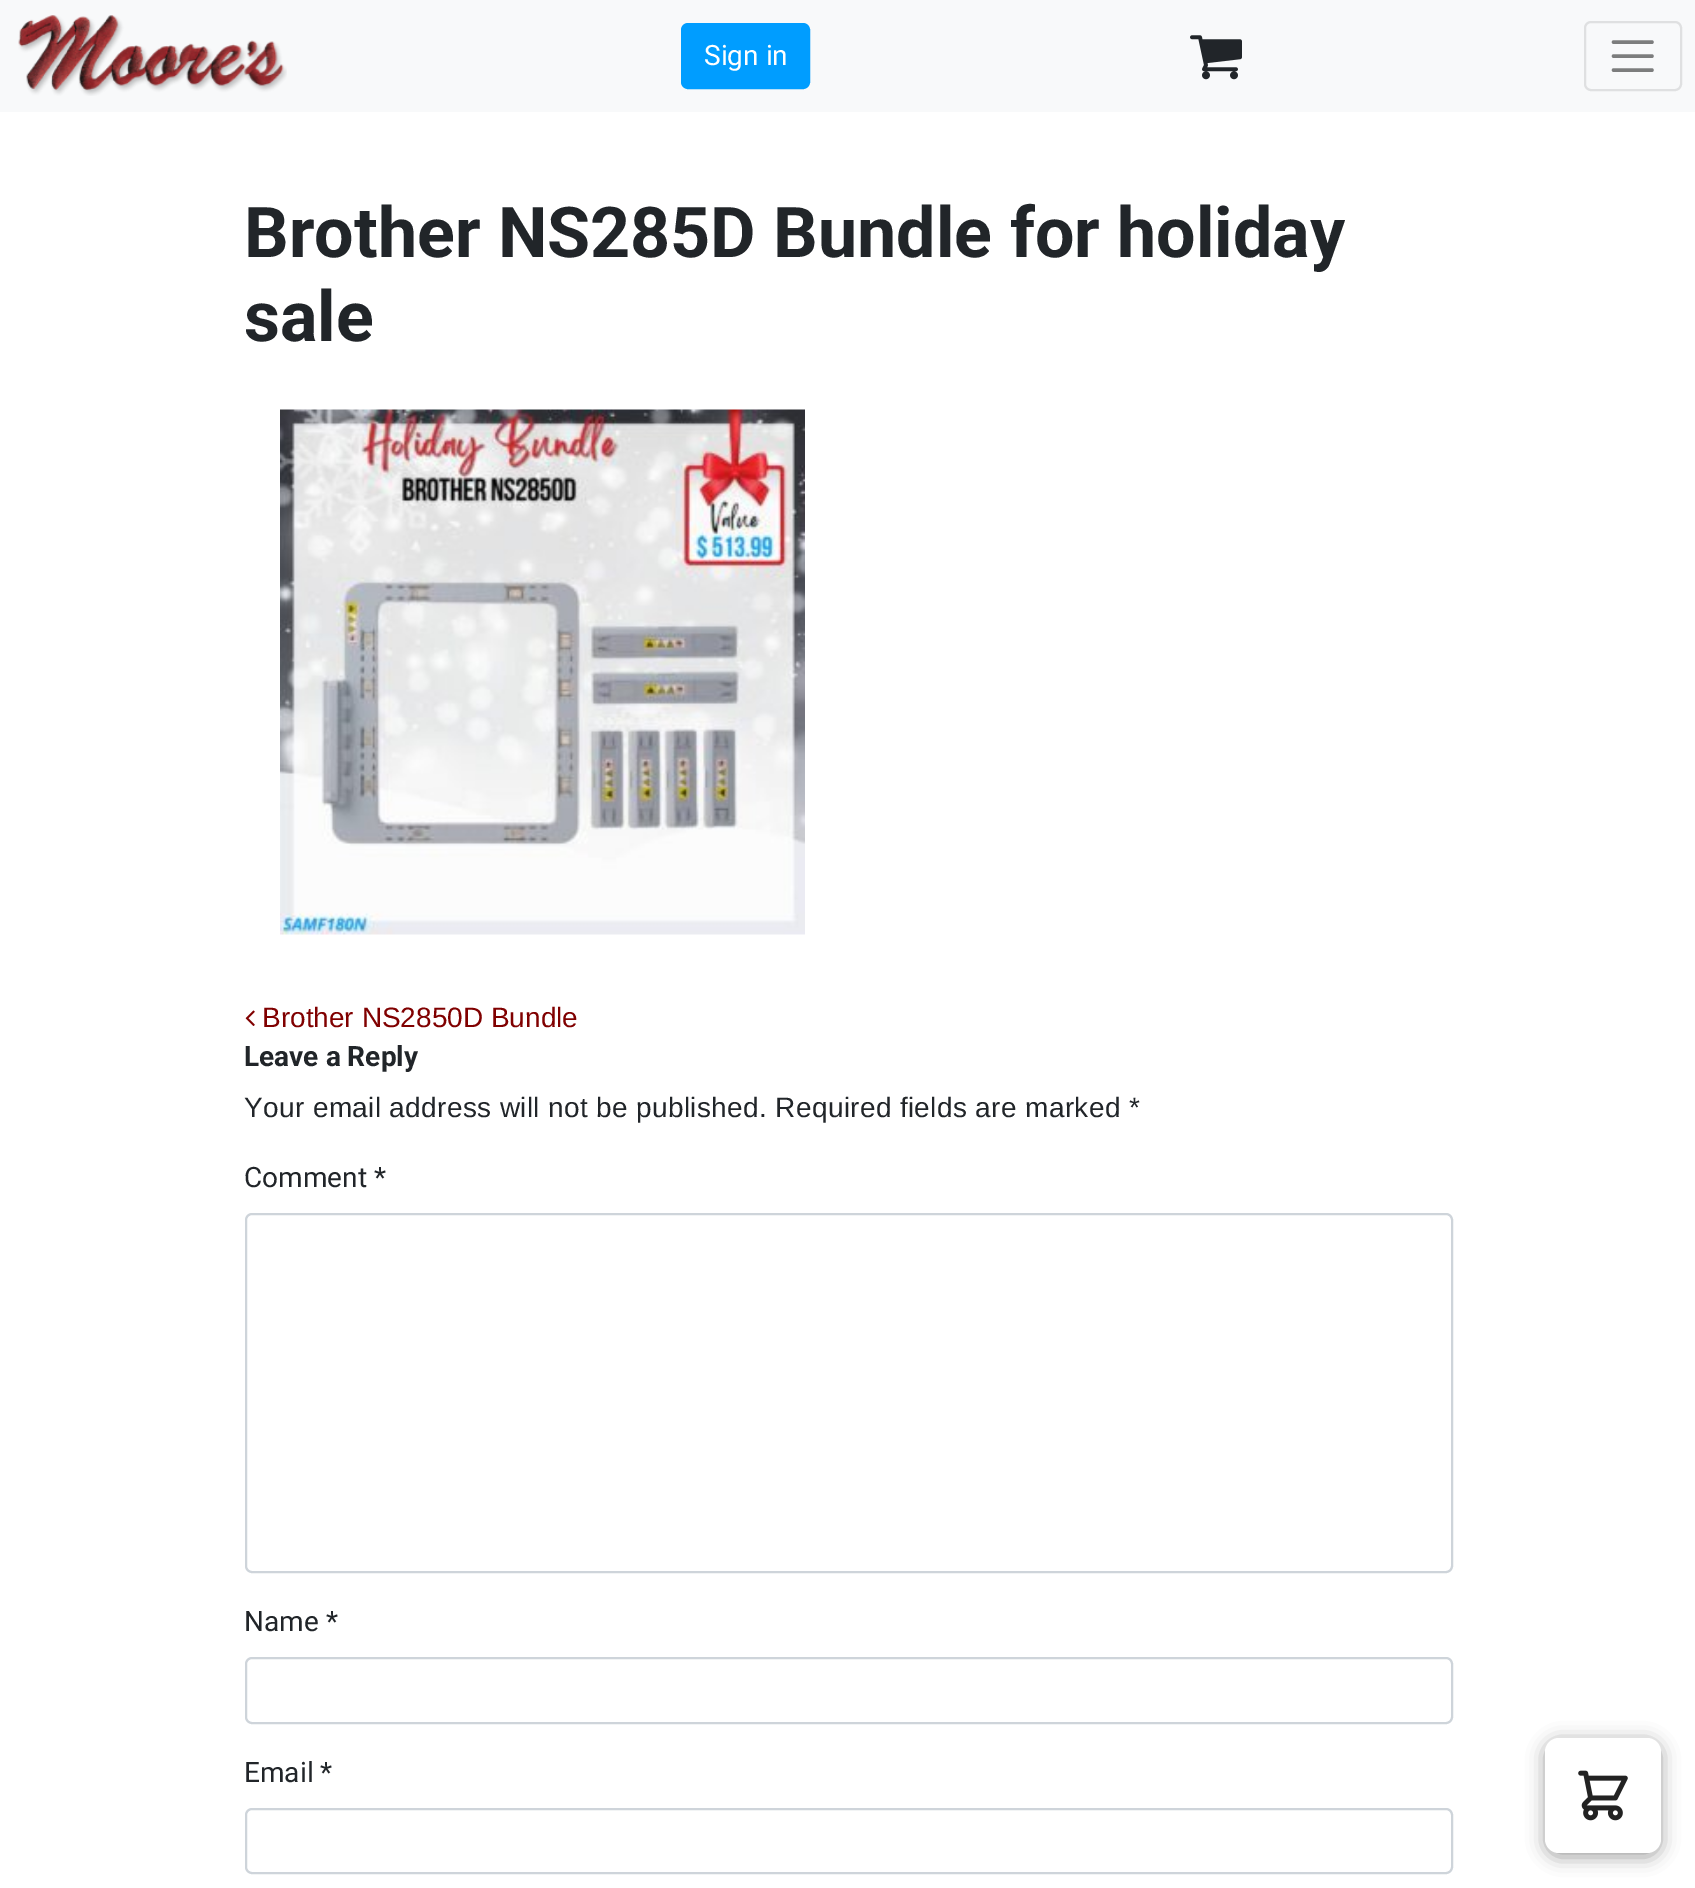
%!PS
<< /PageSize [1695 1888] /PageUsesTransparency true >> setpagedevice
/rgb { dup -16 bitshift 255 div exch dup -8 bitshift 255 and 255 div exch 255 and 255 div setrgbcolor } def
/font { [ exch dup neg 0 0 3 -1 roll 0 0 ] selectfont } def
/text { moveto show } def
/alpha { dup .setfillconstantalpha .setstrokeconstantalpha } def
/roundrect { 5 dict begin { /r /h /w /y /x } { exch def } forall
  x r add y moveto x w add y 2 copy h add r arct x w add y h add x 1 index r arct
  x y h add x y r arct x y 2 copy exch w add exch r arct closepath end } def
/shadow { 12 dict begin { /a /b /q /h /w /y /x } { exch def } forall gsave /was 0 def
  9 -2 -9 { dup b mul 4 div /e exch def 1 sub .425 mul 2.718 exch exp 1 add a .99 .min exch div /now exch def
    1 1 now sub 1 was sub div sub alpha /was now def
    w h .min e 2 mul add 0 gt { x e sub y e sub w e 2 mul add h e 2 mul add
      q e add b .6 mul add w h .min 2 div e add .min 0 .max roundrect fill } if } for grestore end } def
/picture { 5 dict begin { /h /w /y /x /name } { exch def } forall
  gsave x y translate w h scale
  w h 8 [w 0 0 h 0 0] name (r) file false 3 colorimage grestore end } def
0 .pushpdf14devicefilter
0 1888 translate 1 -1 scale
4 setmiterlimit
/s1 { /Roboto-Regular 28 font 16#FFFFFF rgb } def
/s2 { /Roboto-Bold 70 font 16#212529 rgb } def
/s3 { /LiberationSans-Regular 28 font 16#800000 rgb } def
/s4 { /Roboto-Bold 28 font 16#212529 rgb } def
/s5 { /Roboto-Regular 28 font 16#212529 rgb } def
16#FFFFFF rgb
0 0 1695 1888 rectfill
16#F8F9FA rgb
0 0 1695 112 rectfill
(pic1.raw) 18 15 269 81 picture
16#009DFF rgb
682 24 127 64 6 roundrect gsave fill grestore
2 setlinewidth
stroke
s1
(Sign in) 704 65 text
(pic2.raw) 1190 35 52 45 picture
16#DFE0E1 rgb
1585 22 96 68 6 roundrect stroke
16#7C7D7D rgb
3.5 setlinewidth
1 setlinecap
1613.5 42 moveto 1652 42 lineto 1613.5 56 moveto 1652 56 lineto 1613.5 70 moveto 1652 70 lineto stroke
s2
(Brother NS285D Bundle for holiday) 244 257 text
(sale) 244 341 text
(pic3.raw) 280 409 525 526 picture
(pic4.raw) 245 1010 10 16 picture
s3
(Brother NS2850D Bundle) 262 1027 text
s4
(Leave a Reply) 244 1066 text
/LiberationSans-Regular 28 font
244 1117 moveto 0.35 0 (Your email address will not be published. Required fields are marked *) ashow
s5
(Comment *) 244 1187 text
16#CED4DA rgb
2 setlinewidth
0 setlinecap
246 1214 1206 358 6 roundrect stroke
s5
(Name *) 244 1631 text
16#CED4DA rgb
246 1658 1206 65 6 roundrect stroke
s5
(Email *) 244 1782 text
16#CED4DA rgb
246 1809 1206 64 6 roundrect stroke
16#000000 rgb
1545 1741 116 116 14 9 0.37 shadow
16#FFFFFF rgb
1545 1738 116 115 14 roundrect fill
(pic5.raw) 1578 1770 50 51 picture
.poppdf14devicefilter showpage
